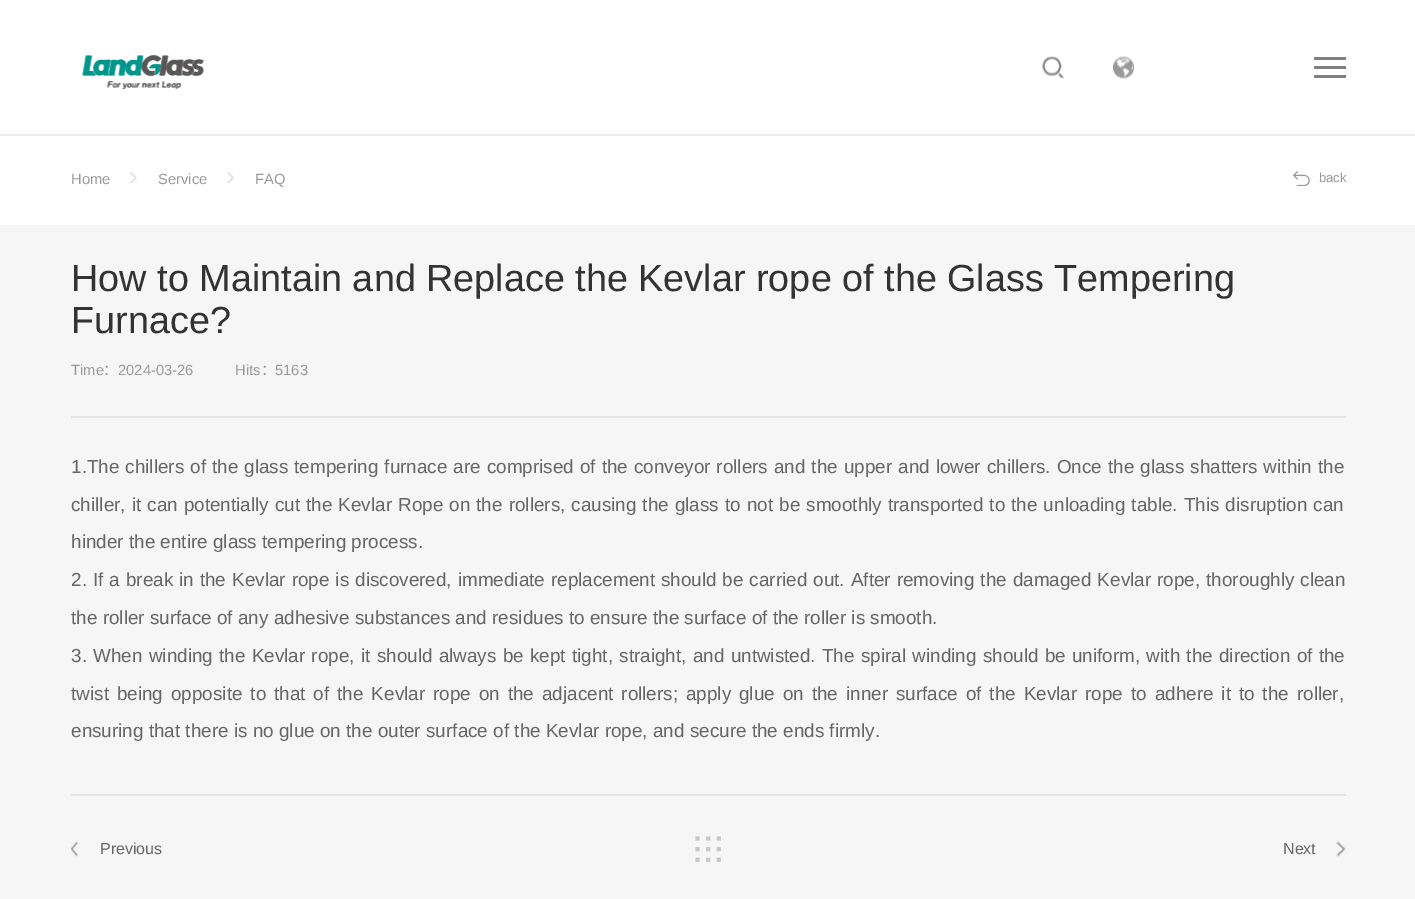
%!PS
<< /PageSize [1415 899] >> setpagedevice
/rgb { dup -16 bitshift 255 div exch dup -8 bitshift 255 and 255 div exch 255 and 255 div setrgbcolor } def
/font { [ exch dup neg 0 0 3 -1 roll 0 0 ] selectfont } def
/text { moveto show } def
/picture { 5 dict begin { /h /w /y /x /name } { exch def } forall
  gsave x y translate w h scale
  w h 8 [w 0 0 h 0 0] name (r) file false 3 colorimage grestore end } def
0 899 translate 1 -1 scale
4 setmiterlimit
/s1 { /LiberationSans-Regular 14.75 font 16#999999 rgb } def
/s2 { /LiberationSans-Regular 13 font 16#999999 rgb } def
/s3 { /LiberationSans-Regular 37.8 font 16#333333 rgb } def
/s4 { /NotoSansCJKSC-Regular 14.75 font 16#999999 rgb } def
/s5 { /LiberationSans-Regular 18.9 font 16#666666 rgb } def
/s6 { /LiberationSans-Regular 16 font 16#666666 rgb } def
16#FFFFFF rgb
0 0 1415 899 rectfill
16#EEEEEE rgb
0 134 1415 2 rectfill
(pic1.raw) 82 55 122 34 picture
(pic2.raw) 82 55 122 34 picture
(pic3.raw) 1042 56 22 23 picture
(pic4.raw) 1113 56 21 23 picture
16#808080 rgb
1314 57 32 3 rectfill
1314 66 32 3 rectfill
1314 75 32 3 rectfill
s1
(Home) 71 184 text
(pic5.raw) 130 172 7 11 picture
(Service) 158 184 text
(pic6.raw) 228 172 6 11 picture
(FAQ) 255 184 text
(pic7.raw) 1293 171 17 15 picture
s2
(back) 1319 182 text
16#F6F6F6 rgb
0 225 1415 674 rectfill
16#E5E5E5 rgb
71 416 1275 2 rectfill
s3
(How to Maintain and Replace the Kevlar rope of the Glass Tempering) 71 291 text
(Furnace?) 71 333 text
s1
(Time) 71 375 text
s4
(：) 103 375 text
s1
(2024-03-26) 118 375 text
(Hits) 235 375 text
s4
(：) 261 375 text
s1
(5163) 275 375 text
/LiberationSans-Regular 18.9 font
16#666666 rgb
71 473 moveto 0.75 0 32 (1.The chillers of the glass tempering furnace are comprised of the conveyor rollers and the upper and lower chillers. Once the glass shatters within the) widthshow
71 511 moveto 0.8 0 32 (chiller, it can potentially cut the Kevlar Rope on the rollers, causing the glass to not be smoothly transported to the unloading table. This disruption can) widthshow
(hinder the entire glass tempering process.) 71 548 text
71 586 moveto 0.75 0 32 (2. If a break in the Kevlar rope is discovered, immediate replacement should be carried out. After removing the damaged Kevlar rope, thoroughly clean) widthshow
(the roller surface of any adhesive substances and residues to ensure the surface of the roller is smooth.) 71 624 text
71 662 moveto 1.05 0 32 (3. When winding the Kevlar rope, it should always be kept tight, straight, and untwisted. The spiral winding should be uniform, with the direction of the) widthshow
71 700 moveto 2.7 0 32 (twist being opposite to that of the Kevlar rope on the adjacent rollers; apply glue on the inner surface of the Kevlar rope to adhere it to the roller,) widthshow
(ensuring that there is no glue on the outer surface of the Kevlar rope, and secure the ends firmly.) 71 737 text
16#E5E5E5 rgb
71 794 1275 2 rectfill
(pic8.raw) 70 841 8 16 picture
s6
(Previous) 100 854 text
(pic9.raw) 695 836 26 26 picture
(pic10.raw) 1336 841 10 16 picture
(Next) 1283 854 text
showpage
